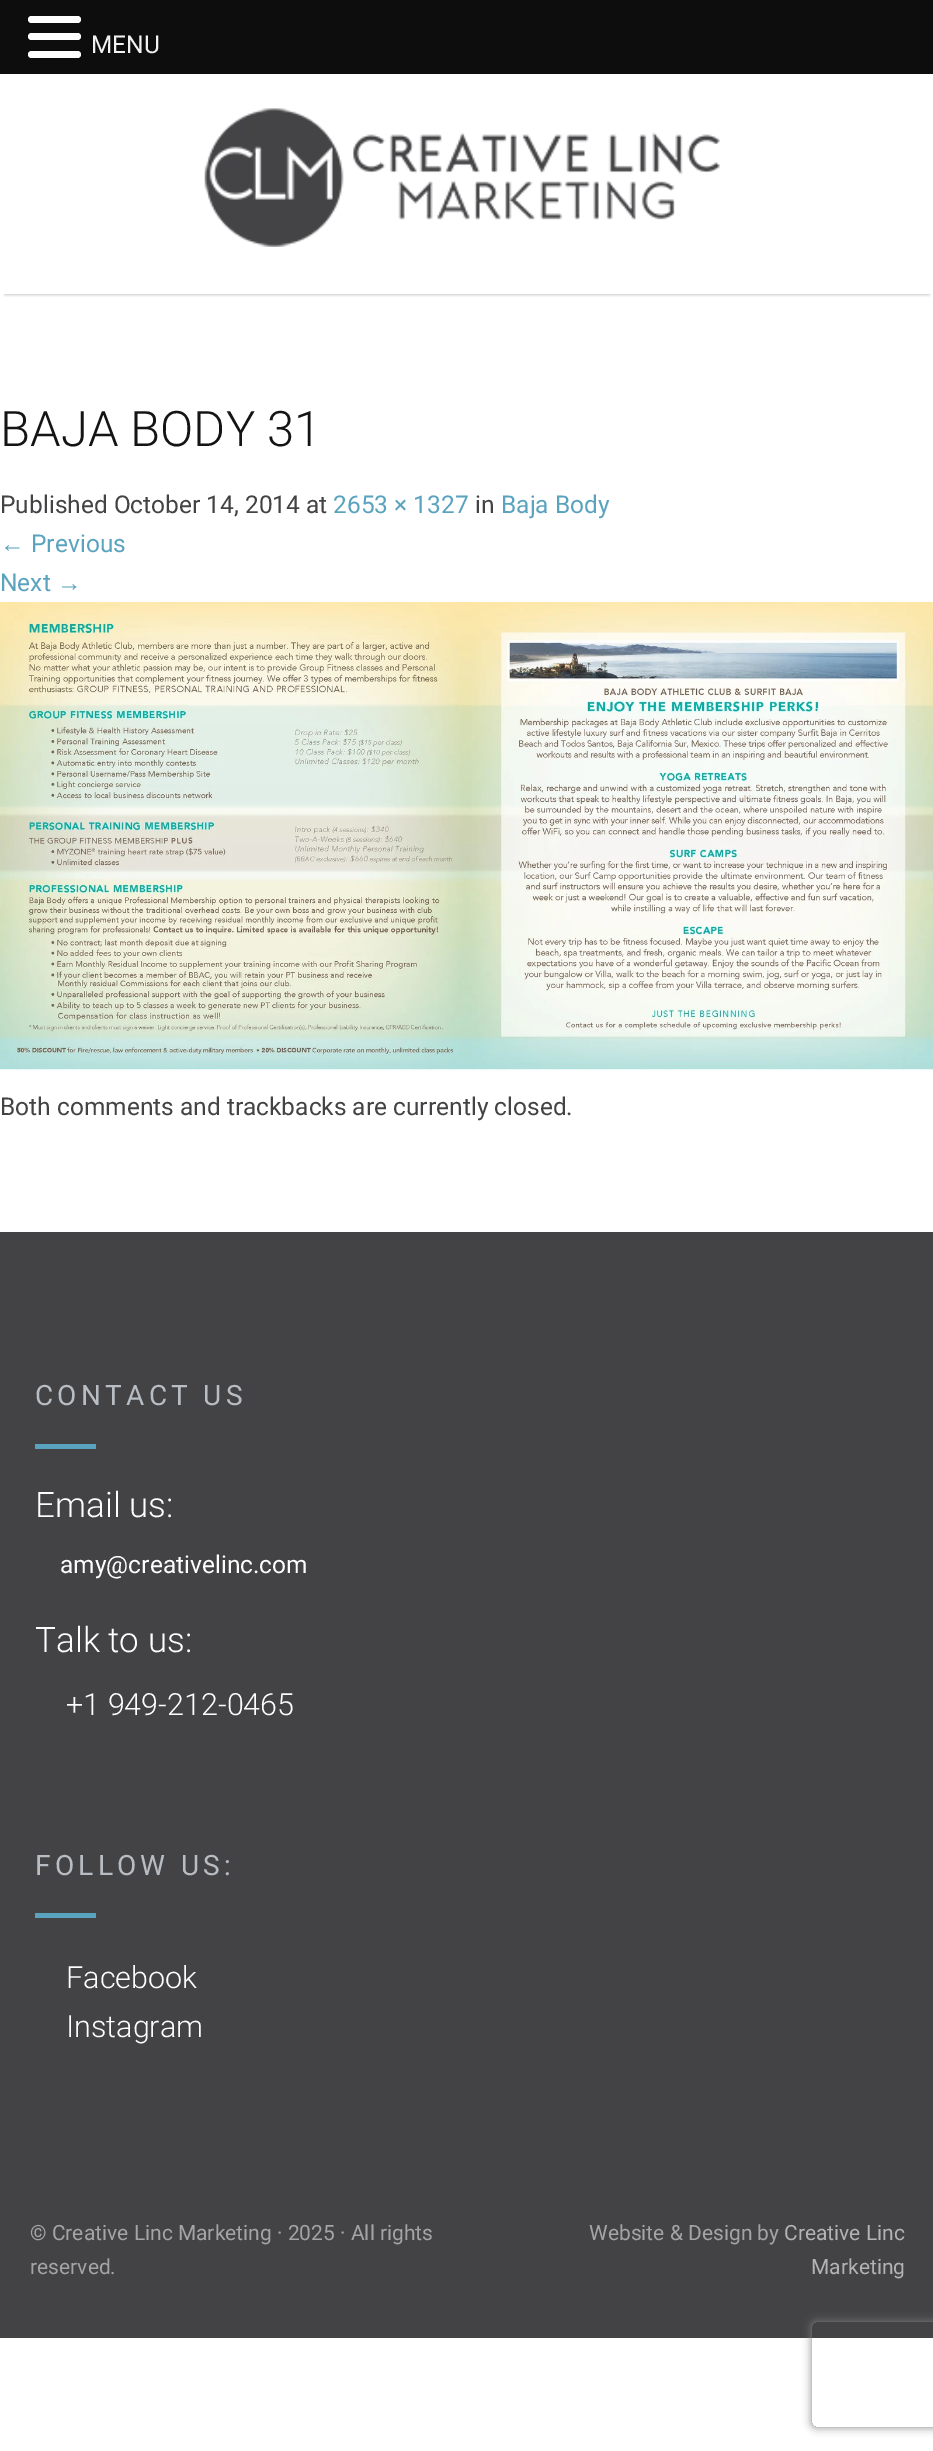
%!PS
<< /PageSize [933 2451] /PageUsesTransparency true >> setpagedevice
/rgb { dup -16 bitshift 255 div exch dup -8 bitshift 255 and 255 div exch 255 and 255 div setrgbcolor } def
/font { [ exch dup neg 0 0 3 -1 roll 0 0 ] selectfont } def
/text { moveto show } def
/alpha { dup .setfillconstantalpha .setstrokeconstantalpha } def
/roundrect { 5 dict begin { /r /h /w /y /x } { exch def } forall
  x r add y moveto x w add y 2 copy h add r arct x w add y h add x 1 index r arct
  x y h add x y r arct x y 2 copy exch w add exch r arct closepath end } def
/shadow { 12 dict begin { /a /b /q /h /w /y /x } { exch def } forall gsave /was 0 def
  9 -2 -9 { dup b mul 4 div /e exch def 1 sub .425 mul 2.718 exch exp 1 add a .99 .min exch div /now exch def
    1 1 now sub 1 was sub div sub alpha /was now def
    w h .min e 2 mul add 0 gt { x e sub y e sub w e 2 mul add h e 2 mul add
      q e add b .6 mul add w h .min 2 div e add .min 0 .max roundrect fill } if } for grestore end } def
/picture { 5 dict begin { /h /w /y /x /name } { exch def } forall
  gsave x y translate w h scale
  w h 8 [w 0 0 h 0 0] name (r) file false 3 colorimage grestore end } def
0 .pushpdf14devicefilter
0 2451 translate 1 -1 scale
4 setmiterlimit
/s1 { /Roboto-Regular 24.5 font 16#F2F2F2 rgb } def
/s2 { /Roboto-Light 49 font 16#141414 rgb } def
/s3 { /Roboto-Regular 24.5 font 16#434345 rgb } def
/s4 { /Roboto-Regular 24.5 font 16#5AA3BF rgb } def
/s5 { /LiberationSans-Regular 24.5 font 16#5AA3BF rgb } def
/s6 { /Roboto-Light 35 font 16#FEFEFE rgb } def
/s7 { /Roboto-Regular 24.5 font 16#FEFEFE rgb } def
/s8 { /Roboto-Light 30.5 font 16#FEFEFE rgb } def
/s9 { /Roboto-Regular 21 font 16#A4A4A5 rgb } def
/s10 { /Roboto-Regular 21 font 16#B3B3B4 rgb } def
16#FFFFFF rgb
0 0 933 2451 rectfill
16#0D0D0D rgb
0 0 933 74 rectfill
16#FFFFFF rgb
28 16 53 7 3.5 roundrect fill
28 33 53 7 3.5 roundrect fill
28 51 53 7 3.5 roundrect fill
s1
(MENU) 91 53 text
gsave
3 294 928 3 rectclip
16#000000 rgb
5 84 924 210 0 2 0.33 shadow
grestore
(pic1.raw) 204 108 516 139 picture
s2
(BAJA BODY 31) 0 446 text
s3
(Published October 14, 2014 at) 0 513 text
s4
(2653 × 1327) 333 513 text
s3
(in) 475 513 text
s4
(Baja Body) 501 513 text
s5
(←) 0 552 text
s4
(Previous) 31 552 text
(Next) 0 591 text
s5
(→) 57 591 text
(pic2.raw) 0 602 933 468 picture
s3
(Both comments and trackbacks are currently closed.) 0 1115 text
0 1232 933 1106 rectfill
/Roboto-Regular 28 font
16#B8BCC3 rgb
35 1405 moveto 4.25 0 (CONTACT US) ashow
16#5AA3BF rgb
35 1444 61 5 rectfill
s6
(Email us:) 35 1517 text
s7
(amy@creativelinc.com) 60 1573 text
s6
(Talk to us:) 35 1652 text
s8
(+1 949-212-0465) 66 1715 text
/Roboto-Regular 28 font
16#B8BCC3 rgb
35 1875 moveto 4.25 0 (FOLLOW US:) ashow
16#5AA3BF rgb
35 1913 61 5 rectfill
s8
(Facebook) 66 1988 text
(Instagram) 66 2037 text
s9
(© Creative Linc Marketing · 2025 · All rights) 30 2240 text
(reserved.) 30 2274 text
(Website & Design by) 589 2240 text
s10
(Creative Linc) 784 2240 text
(Marketing) 811 2274 text
gsave
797 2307 moveto 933 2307 lineto 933 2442 lineto 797 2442 lineto closepath 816 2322 moveto 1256 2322 lineto 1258 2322 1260 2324 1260 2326 curveto 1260 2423 lineto 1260 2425 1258 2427 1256 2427 curveto 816 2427 lineto 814 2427 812 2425 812 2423 curveto 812 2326 lineto 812 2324 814 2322 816 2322 curveto closepath eoclip newpath
16#808080 rgb
812 2322 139 105 4 4.5 1 shadow
grestore
.poppdf14devicefilter showpage
